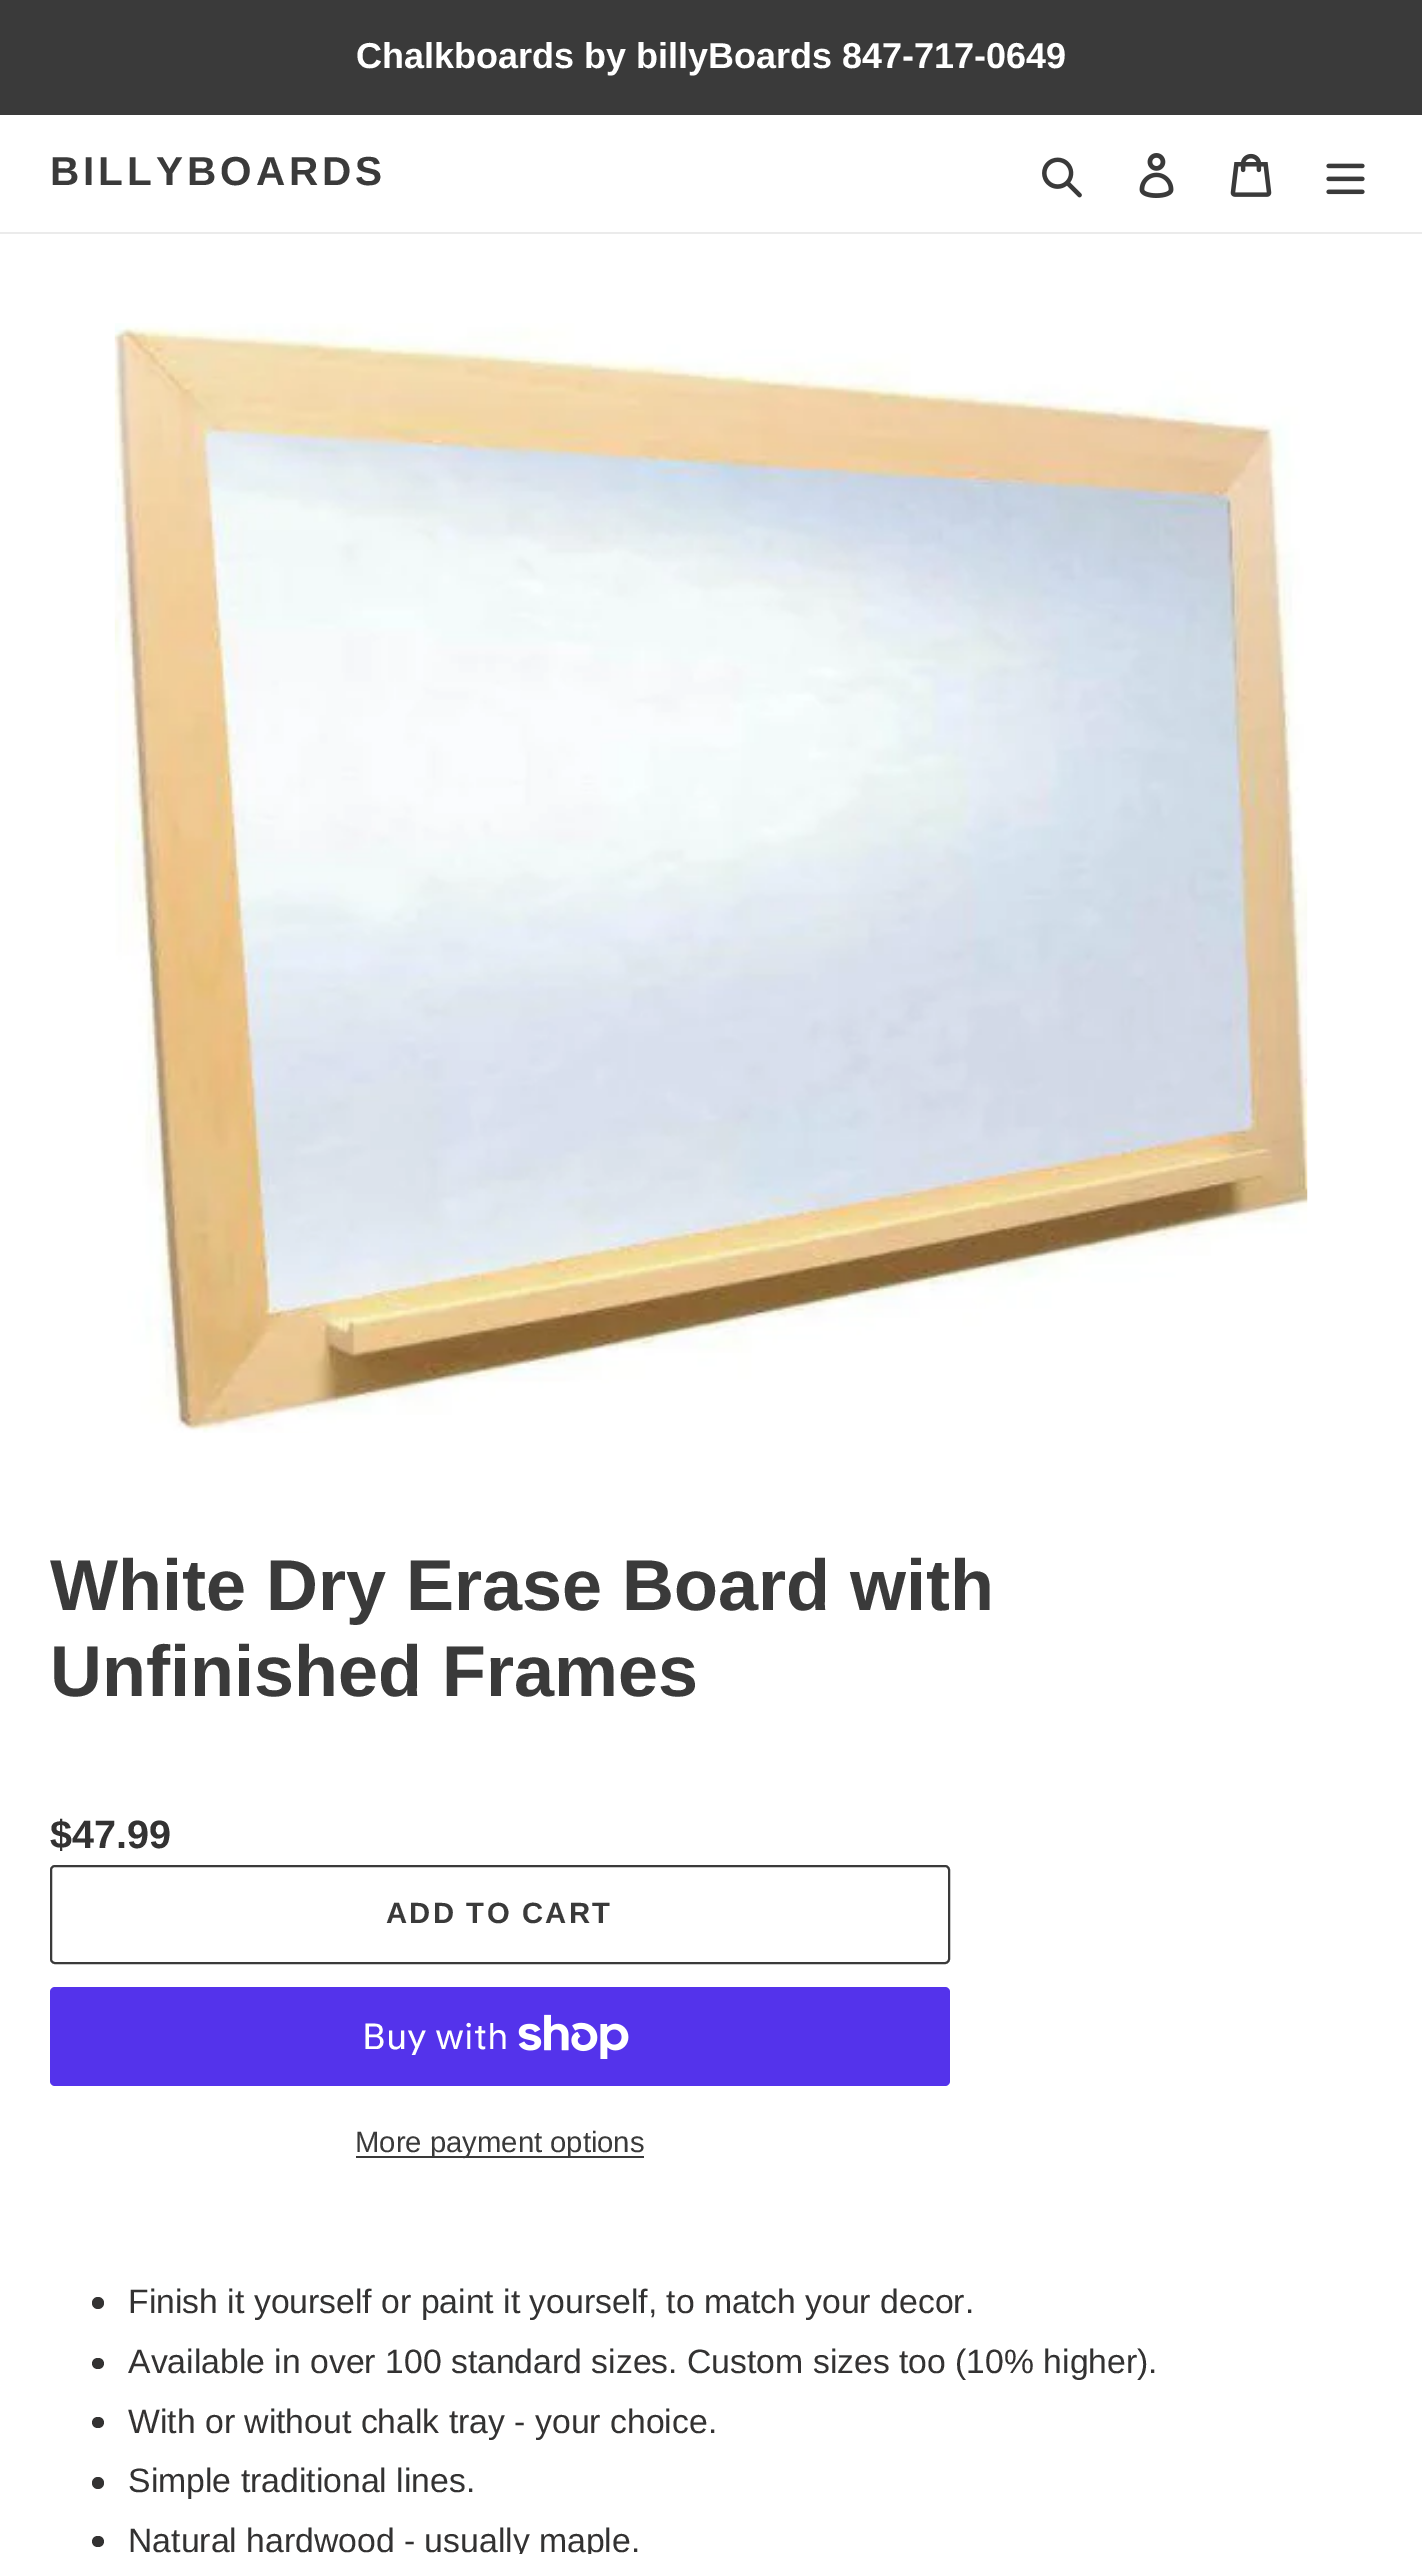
%!PS
<< /PageSize [1422 2554] >> setpagedevice
/rgb { dup -16 bitshift 255 div exch dup -8 bitshift 255 and 255 div exch 255 and 255 div setrgbcolor } def
/font { [ exch dup neg 0 0 3 -1 roll 0 0 ] selectfont } def
/text { moveto show } def
/circle { newpath 0 360 arc closepath } def
/roundrect { 5 dict begin { /r /h /w /y /x } { exch def } forall
  x r add y moveto x w add y 2 copy h add r arct x w add y h add x 1 index r arct
  x y h add x y r arct x y 2 copy exch w add exch r arct closepath end } def
/picture { 5 dict begin { /h /w /y /x /name } { exch def } forall
  gsave x y translate w h scale
  w h 8 [w 0 0 h 0 0] name (r) file false 3 colorimage grestore end } def
0 2554 translate 1 -1 scale
4 setmiterlimit
/s1 { /LiberationSans-Bold 36 font 16#FFFFFF rgb } def
/s2 { /LiberationSans-Bold 72 font 16#3A3A3A rgb } def
/s3 { /LiberationSans-Bold 39.5 font 16#333232 rgb } def
/s4 { /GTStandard-Regular 36 font 16#FFFFFF rgb } def
/s5 { /LiberationSans-Regular 29.25 font 16#3A3A3A rgb } def
/s6 { /LiberationSans-Regular 33.75 font 16#333232 rgb } def
16#FFFFFF rgb
0 0 1422 2554 rectfill
16#3A3A3A rgb
0 0 1422 115 rectfill
s1
(Chalkboards by billyBoards 847-717-0649) 356 68 text
16#EBEBEB rgb
0 232 1422 2 rectfill
/LiberationSans-Bold 40.5 font
16#3A3A3A rgb
50 185 moveto 4 0 (BILLYBOARDS) ashow
(pic1.raw) 1042 157 40 41 picture
(pic2.raw) 1139 153 35 45 picture
(pic3.raw) 1230 153 42 44 picture
(pic4.raw) 1326 163 39 32 picture
(pic5.raw) 114 323 1194 1110 picture
s2
(White Dry Erase Board with) 50 1610 text
(Unfinished Frames) 50 1696 text
s3
($47.99) 50 1848 text
16#3A3A3A rgb
2 setlinewidth
51 1866 898 97 4 roundrect stroke
/LiberationSans-Bold 29.25 font
386 1923 moveto 2.25 0 (ADD TO CART) ashow
16#5433EB rgb
50 1987 900 99 5 roundrect fill
s4
(Buy with) 362 2049 text
(pic6.raw) 518 2014 111 45 picture
16#3A3A3A rgb
356 2156 288 2 rectfill
s5
(More payment options) 355 2152 text
16#333232 rgb
98 2303 6 circle fill
s6
(Finish it yourself or paint it yourself, to match your decor.) 128 2313 text
92 2358 12 11 5.5 roundrect fill
(Available in over 100 standard sizes. Custom sizes too \(10% higher\).) 128 2373 text
92 2417 12 11 5.5 roundrect fill
(With or without chalk tray - your choice.) 128 2433 text
98 2483 6 circle fill
(Simple traditional lines.) 128 2492 text
92 2536 12 11 5.5 roundrect fill
(Natural hardwood - usually maple.) 128 2552 text
showpage
